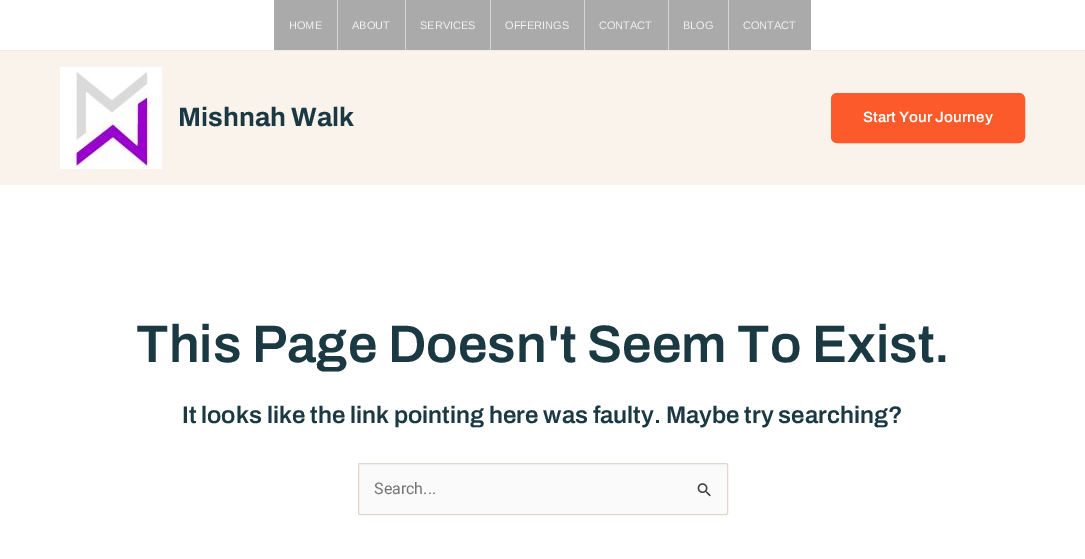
%!PS
<< /PageSize [1085 559] >> setpagedevice
/rgb { dup -16 bitshift 255 div exch dup -8 bitshift 255 and 255 div exch 255 and 255 div setrgbcolor } def
/font { [ exch dup neg 0 0 3 -1 roll 0 0 ] selectfont } def
/text { moveto show } def
/roundrect { 5 dict begin { /r /h /w /y /x } { exch def } forall
  x r add y moveto x w add y 2 copy h add r arct x w add y h add x 1 index r arct
  x y h add x y r arct x y 2 copy exch w add exch r arct closepath end } def
/picture { 5 dict begin { /h /w /y /x /name } { exch def } forall
  gsave x y translate w h scale
  w h 8 [w 0 0 h 0 0] name (r) file false 3 colorimage grestore end } def
0 559 translate 1 -1 scale
4 setmiterlimit
/s1 { /LiberationSans-Regular 11 font 16#F1F1F1 rgb } def
/s2 { /Archivo-Bold 26.5 font 16#1B3942 rgb } def
/s3 { /Archivo-SemiBold 15 font 16#FFFFFF rgb } def
/s4 { /Archivo-SemiBold 52.75 font 16#1B3942 rgb } def
/s5 { /Archivo-SemiBold 24 font 16#1B3942 rgb } def
/s6 { /Roboto-Regular 16 font 16#757575 rgb } def
16#FFFFFF rgb
0 0 1085 559 rectfill
16#EAEAEA rgb
0 50 1085 1 rectfill
16#AAAAAA rgb
274 0 537 50 rectfill
s1
(HOME) 289 29 text
16#D5D5D5 rgb
337 0 1 50 rectfill
s1
(ABOUT) 352 29 text
16#D5D5D5 rgb
405 0 1 50 rectfill
s1
(SERVICES) 420 29 text
16#D5D5D5 rgb
490 0 1 50 rectfill
s1
(OFFERINGS) 505 29 text
16#D5D5D5 rgb
584 0 1 50 rectfill
s1
(CONTACT) 599 29 text
16#D5D5D5 rgb
668 0 1 50 rectfill
s1
(BLOG) 683 29 text
16#D5D5D5 rgb
728 0 1 50 rectfill
s1
(CONTACT) 743 29 text
16#F9F3EB rgb
0 51 1085 134 rectfill
(pic1.raw) 60 67 102 102 picture
s2
(Mishnah Walk) 178 126 text
16#FD5A2B rgb
832 94 192 48 5 roundrect gsave fill grestore
2 setlinewidth
stroke
s3
(Start Your Journey) 863 122 text
s4
(This Page Doesn't Seem To Exist.) 136 362 text
s5
(It looks like the link pointing here was faulty. Maybe try searching?) 182 423 text
16#FAFAFA rgb
358.5 463.5 369 51 1.5 roundrect gsave fill grestore
16#E0D7CB rgb
1 setlinewidth
stroke
s6
(Search...) 374 494 text
(pic2.raw) 697 483 14 14 picture
showpage
